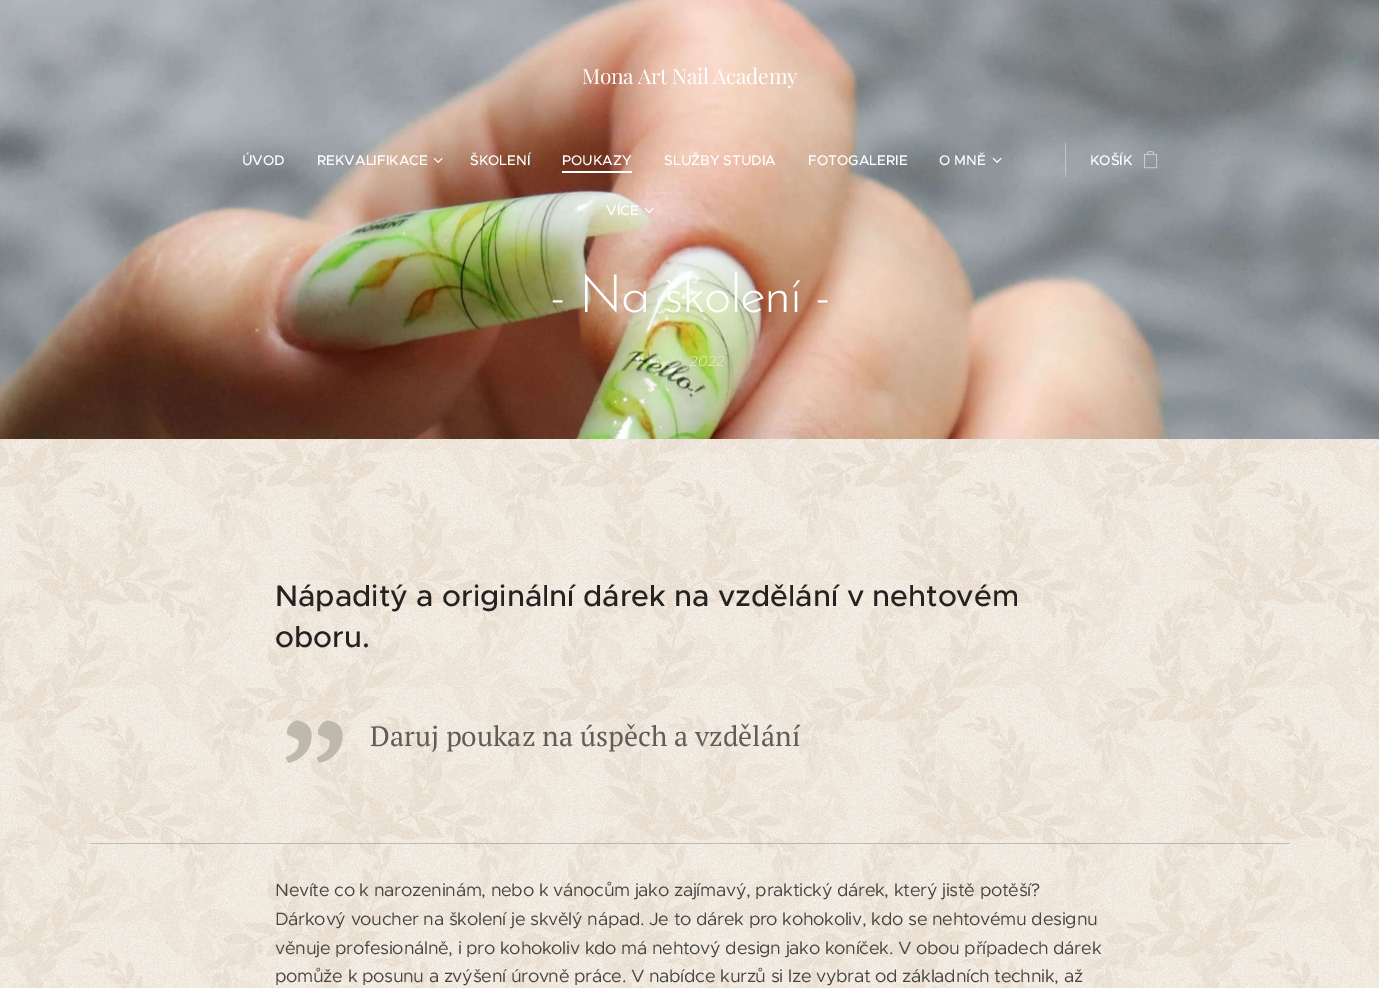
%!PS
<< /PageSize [1379 988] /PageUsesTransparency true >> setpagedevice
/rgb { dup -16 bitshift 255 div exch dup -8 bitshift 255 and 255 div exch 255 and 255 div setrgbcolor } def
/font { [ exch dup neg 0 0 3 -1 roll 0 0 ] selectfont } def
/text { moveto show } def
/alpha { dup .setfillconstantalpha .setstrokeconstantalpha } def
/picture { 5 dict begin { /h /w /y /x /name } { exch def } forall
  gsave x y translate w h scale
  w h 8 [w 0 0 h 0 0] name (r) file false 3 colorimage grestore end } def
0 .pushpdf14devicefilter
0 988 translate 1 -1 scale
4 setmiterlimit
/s1 { /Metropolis-Medium 14 font 16#FFFFFF rgb } def
/s2 { /Metropolis-LightItalic 14.5 font 16#DCE7C1 rgb } def
/s3 { /Metropolis-Medium 30 font 16#242221 rgb } def
/s4 { /PTSerif-Regular 28 font 16#605D58 rgb } def
16#FFFFFF rgb
0 0 1379 988 rectfill
(pic5.raw) 0 0 1379 439 picture
/PlayfairDisplay-Regular 21 font
582 84 moveto -0.32 0 (Mona Art Nail Academy) ashow
s1
(ÚVOD) 242 165 text
(REKVALIFIKACE) 317 165 text
(pic1.raw) 433 157 10 6 picture
(ŠKOLENÍ) 470 165 text
(POUKAZY) 562 165 text
562 171 70 2 rectfill
(SLUŽBY STUDIA) 664 165 text
(FOTOGALERIE) 808 165 text
(O MNĚ) 939 165 text
(pic2.raw) 992 157 10 6 picture
(VÍCE) 606 215 text
(pic3.raw) 644 208 10 5 picture
0.35 alpha
1065 143 1 34 rectfill
1 alpha
(KOŠÍK) 1090 165 text
(pic4.raw) 1144 151 14 18 picture
/JosefinSans-Light 53 font
550 312 moveto -1.6 0 (- Na školení -) ashow
s2
(.) 669 366 text
(.2022) 686 366 text
(pic6.raw) 0 439 1379 549 picture
s3
(Nápaditý a originální dárek na vzdělání v nehtovém) 275 606 text
(oboru.) 275 647 text
/PTSerif-Regular 170 font
16#BFB8AF rgb
gsave 355 623 translate 180 rotate 0 0 moveto (“) show grestore
s4
(Daruj poukaz na úspěch a vzdělání) 370 746 text
0.2 alpha
16#000000 rgb
90 843 1200 1 rectfill
/Metropolis-Regular 18 font
1 alpha
16#474542 rgb
275 896 moveto -0.32 0 (Nevíte co k narozeninám, nebo k vánocům jako zajímavý, praktický dárek, který jistě potěší?) ashow
275 925 moveto -0.32 0 (Dárkový voucher na školení je skvělý nápad. Je to dárek pro kohokoliv, kdo se nehtovému designu) ashow
275 954 moveto -0.32 0 (věnuje profesionálně, i pro kohokoliv kdo má nehtový design jako koníček. V obou případech dárek) ashow
275 982 moveto -0.32 0 (pomůže k posunu a zvýšení úrovně práce. V nabídce kurzů si lze vybrat od základních technik, až) ashow
.poppdf14devicefilter showpage
